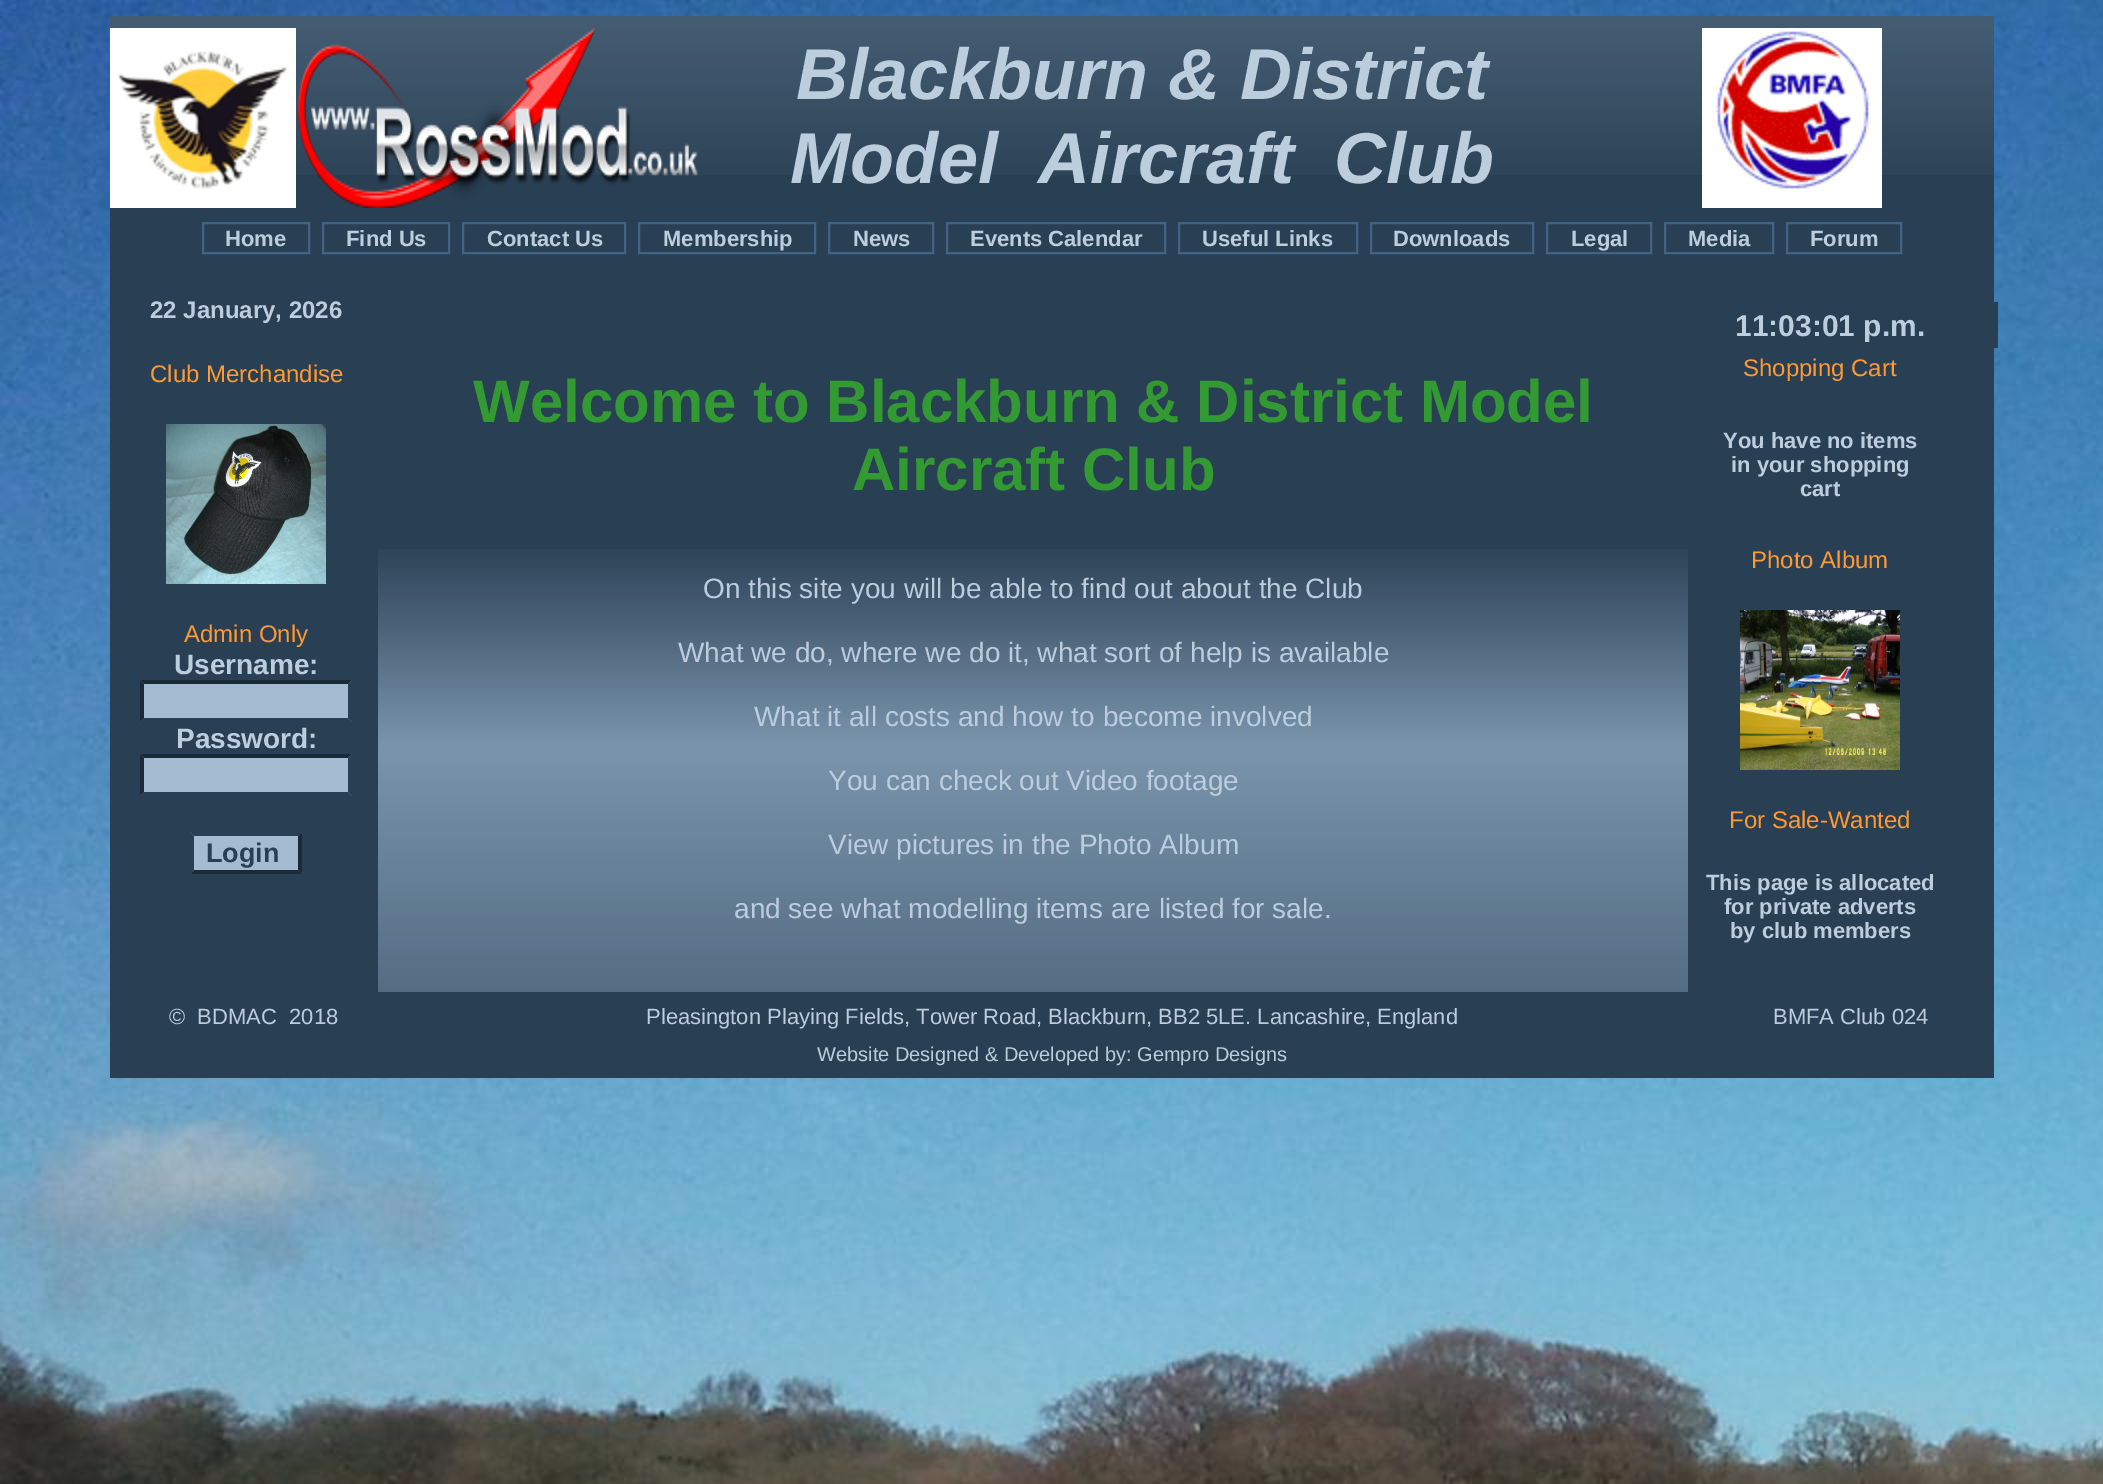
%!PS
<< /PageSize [2103 1484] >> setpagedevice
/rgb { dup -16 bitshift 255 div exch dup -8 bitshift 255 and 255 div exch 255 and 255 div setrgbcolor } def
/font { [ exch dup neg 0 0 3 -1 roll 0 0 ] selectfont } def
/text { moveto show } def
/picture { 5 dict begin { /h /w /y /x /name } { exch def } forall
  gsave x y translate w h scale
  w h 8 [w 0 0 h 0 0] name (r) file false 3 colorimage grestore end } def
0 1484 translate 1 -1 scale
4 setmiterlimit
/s1 { /LiberationSans-BoldItalic 72 font 16#BCCDDE rgb } def
/s2 { /LiberationSans-Bold 22 font 16#BCCDDE rgb } def
/s3 { /LiberationSans-Bold 24 font 16#BCCDDE rgb } def
/s4 { /LiberationSans-Regular 24 font 16#FF9933 rgb } def
/s5 { /LiberationSans-Bold 28 font 16#BCCDDE rgb } def
/s6 { /LiberationSans-Bold 27 font 16#293F54 rgb } def
/s7 { /LiberationSans-Bold 60 font 16#339933 rgb } def
/s8 { /LiberationSans-Regular 28 font 16#BCCDDE rgb } def
/s9 { /LiberationSans-Bold 30 font 16#BCCDDE rgb } def
/s10 { /LiberationSans-Regular 22 font 16#BCCDDE rgb } def
/s11 { /LiberationSans-Regular 20 font 16#BCCDDE rgb } def
16#FFFFFF rgb
0 0 2103 1484 rectfill
(pic1.raw) 0 0 2103 1484 picture
16#293F54 rgb
110 175 1884 903 rectfill
(pic2.raw) 110 16 188 159 picture
(pic3.raw) 110 28 186 180 picture
(pic4.raw) 298 16 400 159 picture
(pic5.raw) 298 28 400 180 picture
(pic6.raw) 698 16 890 159 picture
s1
(Blackburn & District) 796 99 text
(Model  Aircraft  Club) 790 183 text
(pic7.raw) 1588 16 406 159 picture
(pic8.raw) 1702 28 180 180 picture
16#426384 rgb
2 setlinewidth
203 223 106 30 rectstroke
s2
(Home) 225 246 text
16#426384 rgb
323 223 126 30 rectstroke
s2
(Find Us) 346 246 text
16#426384 rgb
463 223 162 30 rectstroke
s2
(Contact Us) 487 246 text
16#426384 rgb
639 223 176 30 rectstroke
s2
(Membership) 663 246 text
16#426384 rgb
829 223 104 30 rectstroke
s2
(News) 853 246 text
16#426384 rgb
947 223 218 30 rectstroke
s2
(Events Calendar) 970 246 text
16#426384 rgb
1179 223 178 30 rectstroke
s2
(Useful Links) 1202 246 text
16#426384 rgb
1371 223 162 30 rectstroke
s2
(Downloads) 1393 246 text
16#426384 rgb
1547 223 104 30 rectstroke
s2
(Legal) 1571 246 text
16#426384 rgb
1665 223 108 30 rectstroke
s2
(Media) 1688 246 text
16#426384 rgb
1787 223 114 30 rectstroke
s2
(Forum) 1810 246 text
s3
(22 January, 2026) 150 318 text
s4
(Club Merchandise) 150 382 text
(pic9.raw) 166 424 160 160 picture
(Admin Only) 184 642 text
s5
(Username:) 174 674 text
16#A4BBD2 rgb
140 680 212 42 rectfill
16#1B2A38 rgb
140 680 moveto 352 680 lineto 348 684 lineto 144 684 lineto closepath fill
16#293F54 rgb
352 680 moveto 352 722 lineto 348 718 lineto 348 684 lineto closepath fill
352 722 moveto 140 722 lineto 144 718 lineto 348 718 lineto closepath fill
16#1B2A38 rgb
140 722 moveto 140 680 lineto 144 684 lineto 144 718 lineto closepath fill
s5
(Password:) 176 748 text
16#A4BBD2 rgb
140 754 212 42 rectfill
16#1B2A38 rgb
140 754 moveto 352 754 lineto 348 758 lineto 144 758 lineto closepath fill
16#293F54 rgb
352 754 moveto 352 796 lineto 348 792 lineto 348 758 lineto closepath fill
352 796 moveto 140 796 lineto 144 792 lineto 348 792 lineto closepath fill
16#1B2A38 rgb
140 796 moveto 140 754 lineto 144 758 lineto 144 792 lineto closepath fill
16#A4BBD2 rgb
190 832 112 42 rectfill
16#293F54 rgb
190 832 moveto 302 832 lineto 298 836 lineto 194 836 lineto closepath fill
16#1B2A38 rgb
302 832 moveto 302 874 lineto 298 870 lineto 298 836 lineto closepath fill
302 874 moveto 190 874 lineto 194 870 lineto 298 870 lineto closepath fill
16#293F54 rgb
190 874 moveto 190 832 lineto 194 836 lineto 194 870 lineto closepath fill
s6
(Login) 206 862 text
(pic10.raw) 378 549 1310 443 picture
s7
(Welcome to Blackburn & District Model) 473 422 text
(Aircraft Club) 852 490 text
s8
(On this site you will be able to find out about the Club) 703 598 text
(What we do, where we do it, what sort of help is available) 678 662 text
(What it all costs and how to become involved) 754 726 text
(You can check out Video footage) 828 790 text
(View pictures in the Photo Album) 828 854 text
(and see what modelling items are listed for sale.) 734 918 text
16#293F54 rgb
1994 302 4 46 rectfill
gsave
1734 308 256 34 rectclip
s9
(11:03:01 p.m.) 1735 336 text
grestore
s4
(Shopping Cart) 1743 376 text
s2
(You have no items) 1723 448 text
(in your shopping) 1731 472 text
(cart) 1800 496 text
s4
(Photo Album) 1751 568 text
(pic11.raw) 1740 610 160 160 picture
(For Sale-Wanted) 1729 828 text
s2
(This page is allocated) 1706 890 text
(for private adverts) 1724 914 text
(by club members) 1730 938 text
s10
(©  BDMAC  2018) 169 1024 text
(Pleasington Playing Fields, Tower Road, Blackburn, BB2 5LE. Lancashire, England) 646 1024 text
(BMFA Club 024) 1773 1024 text
s11
(Website Designed & Developed by: Gempro Designs) 817 1061 text
showpage
